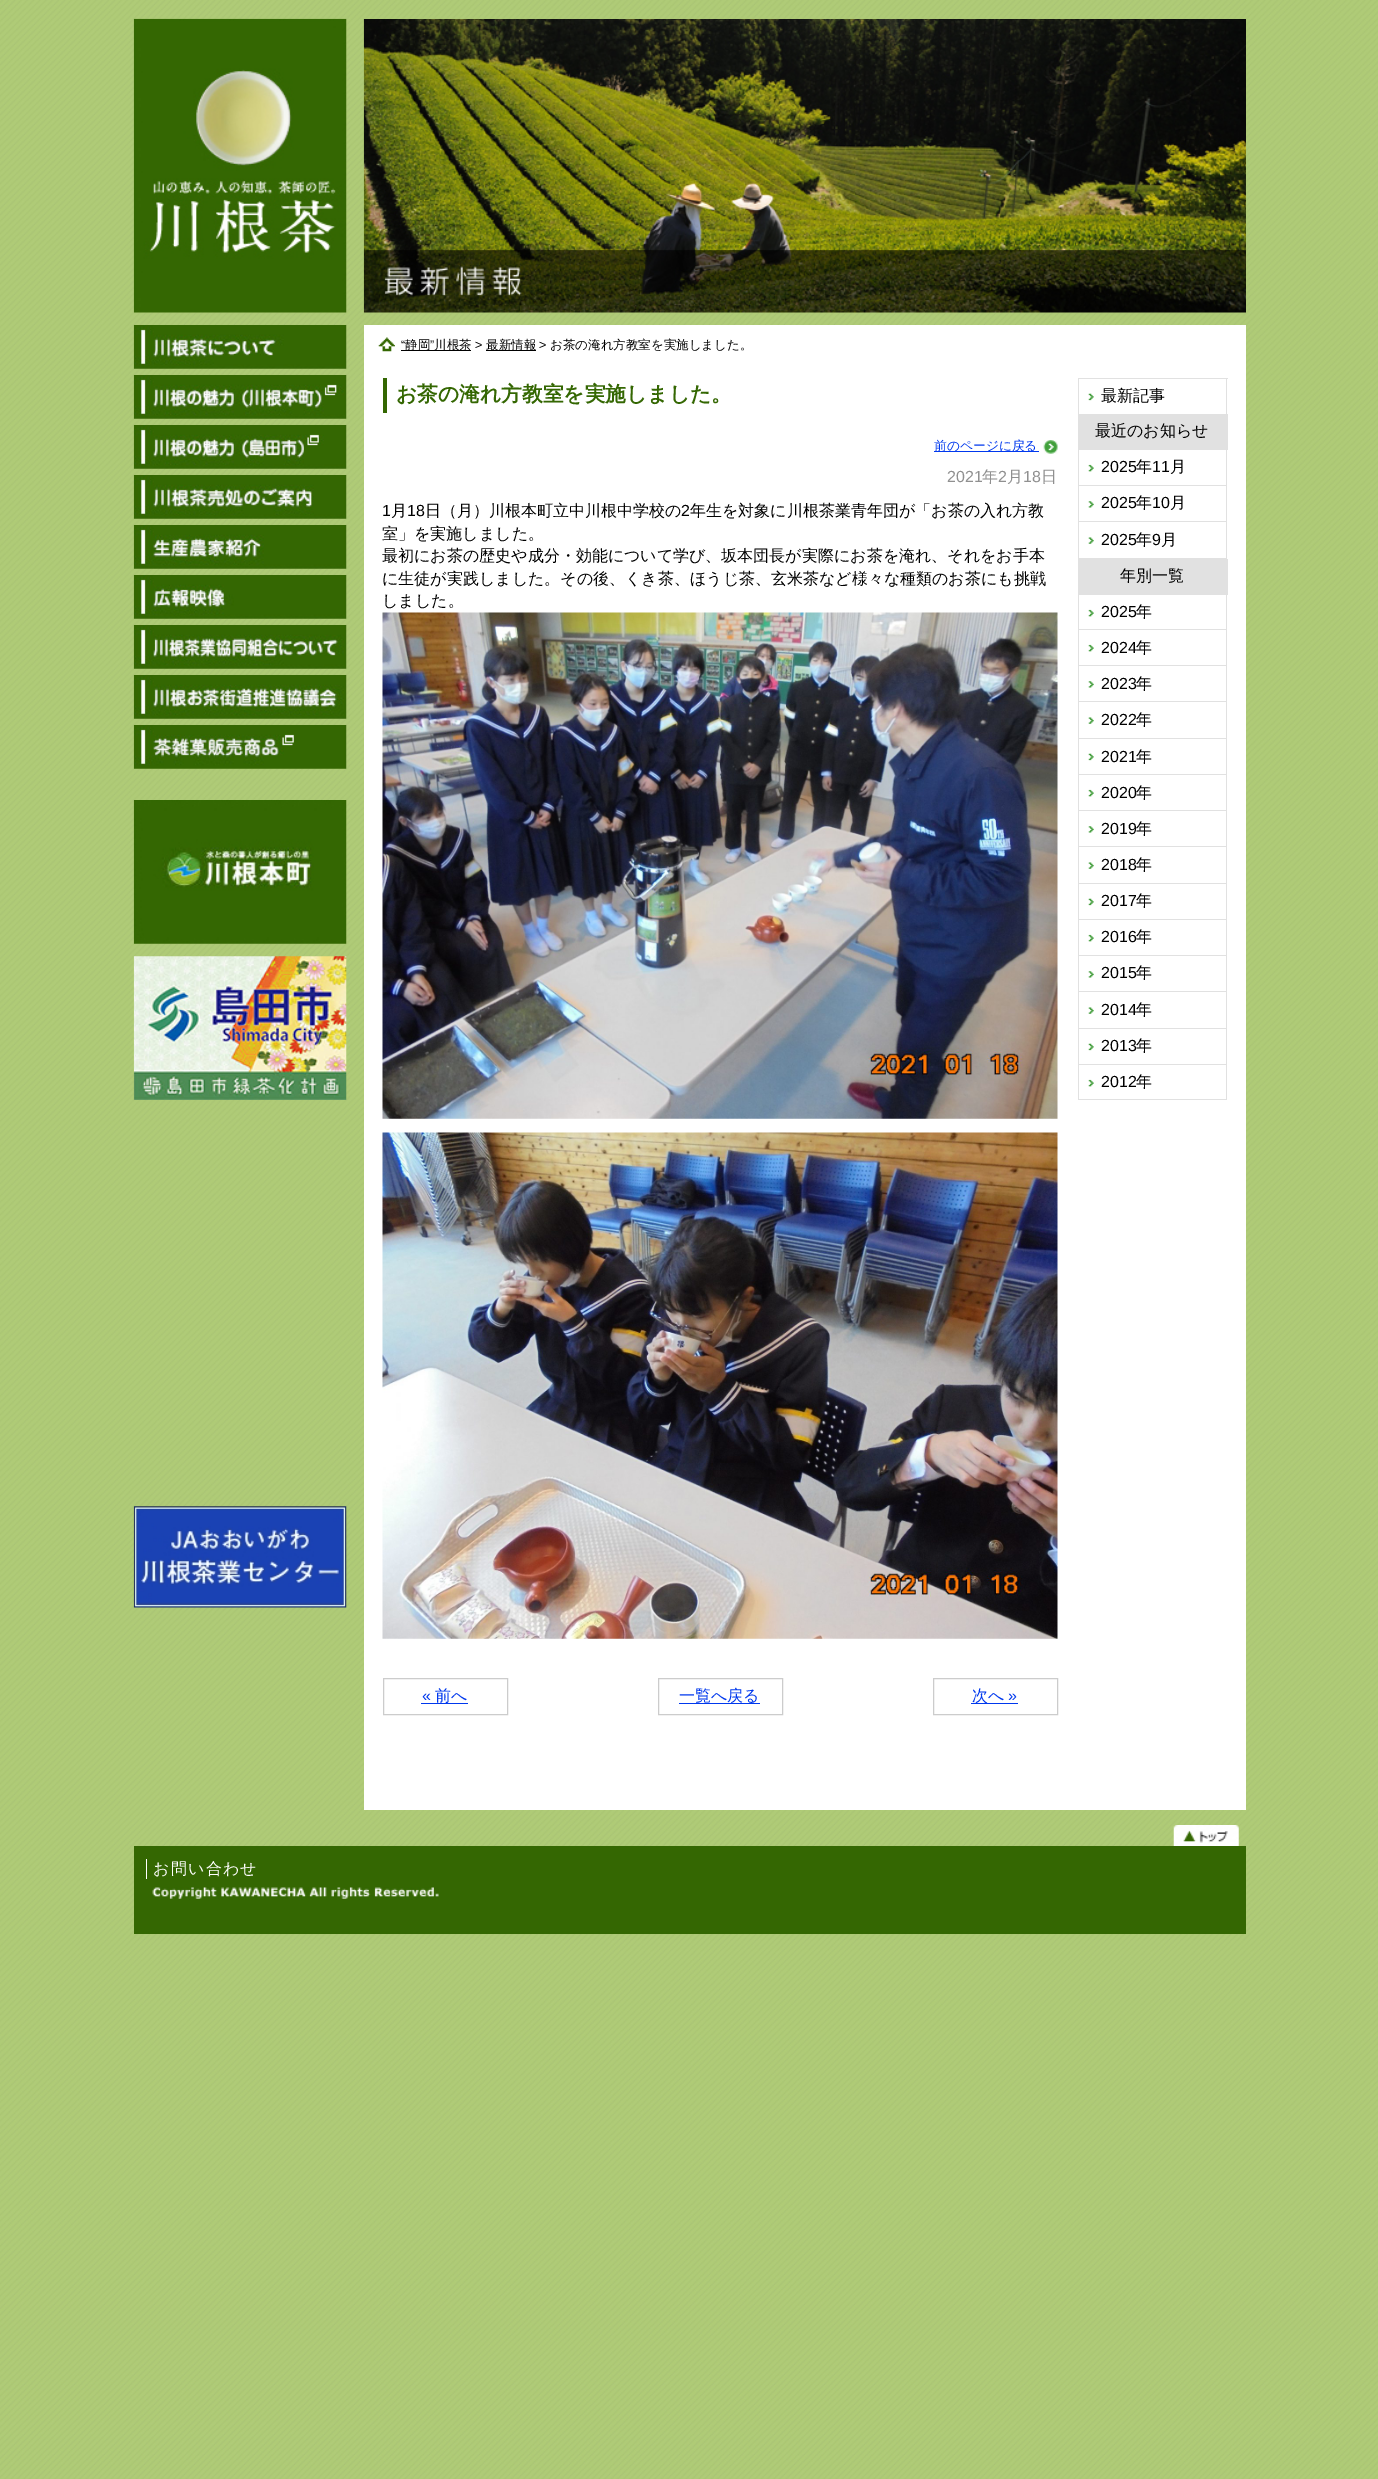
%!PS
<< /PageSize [1378 2479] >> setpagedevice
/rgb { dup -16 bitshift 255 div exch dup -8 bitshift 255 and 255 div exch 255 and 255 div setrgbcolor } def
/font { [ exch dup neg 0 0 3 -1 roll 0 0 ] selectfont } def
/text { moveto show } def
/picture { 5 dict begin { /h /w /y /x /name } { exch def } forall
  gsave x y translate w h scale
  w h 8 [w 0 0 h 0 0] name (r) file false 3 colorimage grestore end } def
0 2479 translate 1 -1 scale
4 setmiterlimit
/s1 { /LiberationSans-Regular 12.5 font 16#000000 rgb } def
/s2 { /WenQuanYiZenHei-Medium 12.5 font 16#000000 rgb } def
/s3 { /WenQuanYiZenHei-Bold 20.75 font 16#346702 rgb } def
/s4 { /WenQuanYiZenHei-Medium 12.75 font 16#0038EE rgb } def
/s5 { /LiberationSans-Regular 16 font 16#909090 rgb } def
/s6 { /WenQuanYiZenHei-Medium 16 font 16#909090 rgb } def
/s7 { /LiberationSans-Regular 16 font 16#000000 rgb } def
/s8 { /WenQuanYiZenHei-Medium 16 font 16#000000 rgb } def
/s9 { /LiberationSans-Regular 16 font 16#0038EE rgb } def
/s10 { /WenQuanYiZenHei-Medium 16 font 16#0038EE rgb } def
16#FFFFFF rgb
0 0 1378 2479 rectfill
(pic1.raw) 0 0 1378 2479 picture
(pic2.raw) 133 18 214 295 picture
(pic3.raw) 133 325 214 44 picture
(pic4.raw) 133 375 214 44 picture
(pic5.raw) 133 425 214 44 picture
(pic6.raw) 133 475 214 44 picture
(pic7.raw) 133 525 214 44 picture
(pic8.raw) 133 575 214 44 picture
(pic9.raw) 133 625 214 44 picture
(pic10.raw) 133 675 214 44 picture
(pic11.raw) 133 725 214 44 picture
(pic12.raw) 133 800 214 144 picture
(pic13.raw) 133 956 214 144 picture
(pic14.raw) 133 1506 214 102 picture
(pic15.raw) 363 19 883 294 picture
364 325 882 1485 rectfill
(pic16.raw) 378 337 17 15 picture
s1
(“) 401 349 text
401 350 70 1 rectfill
s2
(静岡) 405 349 text
s1
(”) 430 349 text
s2
(川根茶) 434 349 text
s1
(>) 475 349 text
486 350 50 1 rectfill
s2
(最新情報) 486 349 text
s1
(>) 539 349 text
s2
(お茶の淹れ方教室を実施しました。) 550 349 text
16#346702 rgb
383 378 4 35 rectfill
s3
(お茶の淹れ方教室を実施しました。) 396 401 text
16#0038EE rgb
934 451 105 1 rectfill
s4
(前のページに戻る) 934 450 text
(pic17.raw) 1043 440 15 14 picture
s5
(2021) 947 482 text
s6
(年) 982 482 text
s5
(2) 998 482 text
s6
(月) 1007 482 text
s5
(18) 1023 482 text
s6
(日) 1041 482 text
s7
(1) 382 516 text
s8
(月) 391 516 text
s7
(18) 407 516 text
s8
(日（月）川根本町立中川根中学校の) 425 516 text
s7
(2) 681 516 text
s8
(年生を対象に川根茶業青年団が「お茶の入れ方教) 690 516 text
(室」を実施しました。) 382 539 text
(最初にお茶の歴史や成分・効能について学び、坂本団長が実際にお茶を淹れ、それをお手本) 382 561 text
(に生徒が実践しました。その後、くき茶、ほうじ茶、玄米茶など様々な種類のお茶にも挑戦) 382 584 text
(しました。) 382 606 text
(pic18.raw) 382 612 676 507 picture
(pic19.raw) 382 1132 676 507 picture
16#CCCCCC rgb
383.5 1678.5 124 36 rectstroke
s9
(«) 422 1701 text
421 1703 47 1 rectfill
s10
(前へ) 435 1701 text
16#CCCCCC rgb
658.5 1678.5 124 36 rectstroke
s10
(一覧へ戻る) 679 1701 text
679 1703 81 1 rectfill
16#CCCCCC rgb
933.5 1678.5 124 36 rectstroke
16#0038EE rgb
971 1703 47 1 rectfill
(次へ) 972 1701 text
s9
(») 1008 1701 text
16#E1E1E1 rgb
1078 378 150 1 rectfill
1226 378 1 36 rectfill
1078 378 1 36 rectfill
(pic20.raw) 1088 393 6 8 picture
s8
(最新記事) 1101 401 text
16#E1E1E1 rgb
1078 414 150 36 rectfill
s8
(最近のお知らせ) 1095 436 text
16#E1E1E1 rgb
1226 449 1 110 rectfill
1078 449 1 110 rectfill
1079 485 147 1 rectfill
(pic21.raw) 1088 464 6 8 picture
s7
(2025) 1101 472 text
s8
(年) 1136 472 text
s7
(11) 1152 472 text
s8
(月) 1170 472 text
16#E1E1E1 rgb
1079 521 147 1 rectfill
(pic22.raw) 1088 501 6 7 picture
s7
(2025) 1101 508 text
s8
(年) 1136 508 text
s7
(10) 1152 508 text
s8
(月) 1170 508 text
16#E1E1E1 rgb
1079 558 147 1 rectfill
(pic23.raw) 1088 537 6 7 picture
s7
(2025) 1101 545 text
s8
(年) 1136 545 text
s7
(9) 1152 545 text
s8
(月) 1161 545 text
16#E1E1E1 rgb
1078 559 150 36 rectfill
s8
(年別一覧) 1120 581 text
16#E1E1E1 rgb
1226 594 1 506 rectfill
1078 594 1 506 rectfill
1079 629 147 1 rectfill
(pic21.raw) 1088 609 6 8 picture
s7
(2025) 1101 617 text
s8
(年) 1136 617 text
16#E1E1E1 rgb
1079 665 147 1 rectfill
(pic21.raw) 1088 644 6 8 picture
s7
(2024) 1101 653 text
s8
(年) 1136 653 text
16#E1E1E1 rgb
1079 701 147 1 rectfill
(pic22.raw) 1088 681 6 7 picture
s7
(2023) 1101 689 text
s8
(年) 1136 689 text
16#E1E1E1 rgb
1079 738 147 1 rectfill
(pic23.raw) 1088 717 6 7 picture
s7
(2022) 1101 725 text
s8
(年) 1136 725 text
16#E1E1E1 rgb
1079 774 147 1 rectfill
(pic20.raw) 1088 753 6 8 picture
s7
(2021) 1101 762 text
s8
(年) 1136 762 text
16#E1E1E1 rgb
1079 810 147 1 rectfill
(pic21.raw) 1088 789 6 8 picture
s7
(2020) 1101 798 text
s8
(年) 1136 798 text
16#E1E1E1 rgb
1079 846 147 1 rectfill
(pic22.raw) 1088 826 6 7 picture
s7
(2019) 1101 834 text
s8
(年) 1136 834 text
16#E1E1E1 rgb
1079 883 147 1 rectfill
(pic23.raw) 1088 862 6 7 picture
s7
(2018) 1101 870 text
s8
(年) 1136 870 text
16#E1E1E1 rgb
1079 919 147 1 rectfill
(pic20.raw) 1088 898 6 8 picture
s7
(2017) 1101 906 text
s8
(年) 1136 906 text
16#E1E1E1 rgb
1079 955 147 1 rectfill
(pic21.raw) 1088 934 6 8 picture
s7
(2016) 1101 942 text
s8
(年) 1136 942 text
16#E1E1E1 rgb
1079 991 147 1 rectfill
(pic22.raw) 1088 971 6 7 picture
s7
(2015) 1101 978 text
s8
(年) 1136 978 text
16#E1E1E1 rgb
1079 1028 147 1 rectfill
(pic23.raw) 1088 1007 6 7 picture
s7
(2014) 1101 1015 text
s8
(年) 1136 1015 text
16#E1E1E1 rgb
1079 1064 147 1 rectfill
(pic20.raw) 1088 1043 6 8 picture
s7
(2013) 1101 1051 text
s8
(年) 1136 1051 text
16#E1E1E1 rgb
1079 1099 147 1 rectfill
(pic21.raw) 1088 1079 6 8 picture
s7
(2012) 1101 1087 text
s8
(年) 1136 1087 text
(pic24.raw) 1173 1825 66 21 picture
16#346702 rgb
134 1846 1112 88 rectfill
16#FFFFFF rgb
146 1859 1 20 rectfill
153 1874 moveto 1.25 0 (お問い合わせ) ashow
(pic25.raw) 152 1887 287 13 picture
showpage
